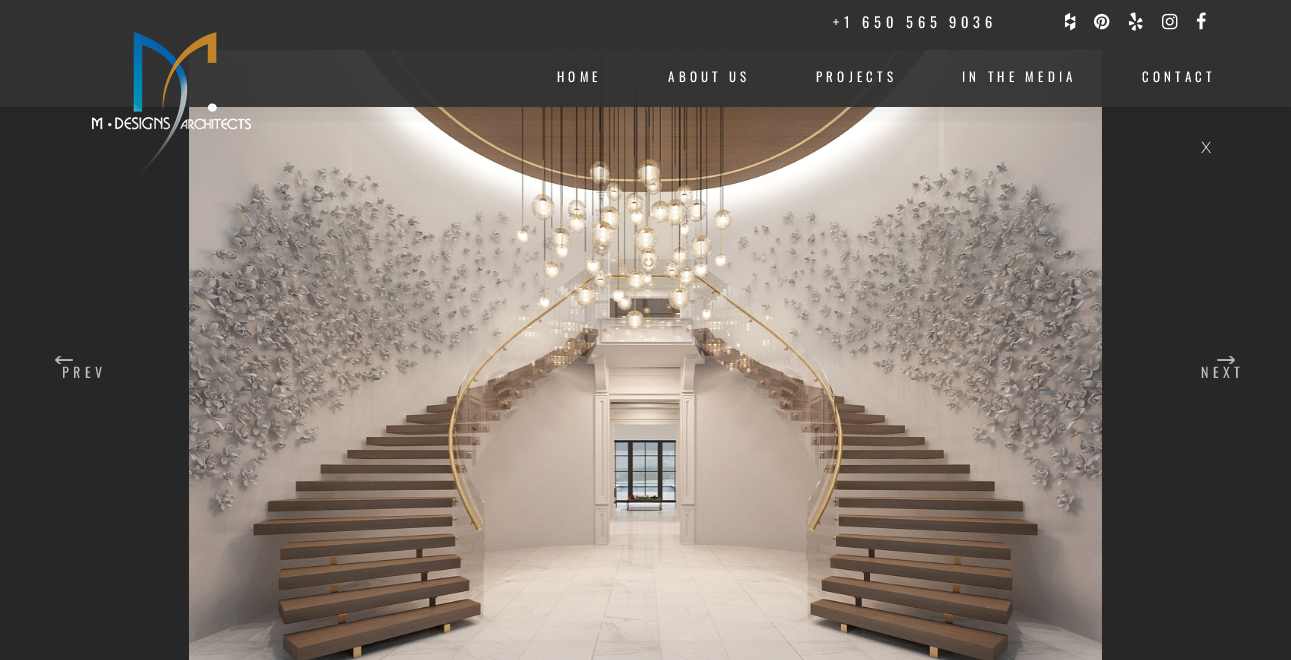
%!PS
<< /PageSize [1291 660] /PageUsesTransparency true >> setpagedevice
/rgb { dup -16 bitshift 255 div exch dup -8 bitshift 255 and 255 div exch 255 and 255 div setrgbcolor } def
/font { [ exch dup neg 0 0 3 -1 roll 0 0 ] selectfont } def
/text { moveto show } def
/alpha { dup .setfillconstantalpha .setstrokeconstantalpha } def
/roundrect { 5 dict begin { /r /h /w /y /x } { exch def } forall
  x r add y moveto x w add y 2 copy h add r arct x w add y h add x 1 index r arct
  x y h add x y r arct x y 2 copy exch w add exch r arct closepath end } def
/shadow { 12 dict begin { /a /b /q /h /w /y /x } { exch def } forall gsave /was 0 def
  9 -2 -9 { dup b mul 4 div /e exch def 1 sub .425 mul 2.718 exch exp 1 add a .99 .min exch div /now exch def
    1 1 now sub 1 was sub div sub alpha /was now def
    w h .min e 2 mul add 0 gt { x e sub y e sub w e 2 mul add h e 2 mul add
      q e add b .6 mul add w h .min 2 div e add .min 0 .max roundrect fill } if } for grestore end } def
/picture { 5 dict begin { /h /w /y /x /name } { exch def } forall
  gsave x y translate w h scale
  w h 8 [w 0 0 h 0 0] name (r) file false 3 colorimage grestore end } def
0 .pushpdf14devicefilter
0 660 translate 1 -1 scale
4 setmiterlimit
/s1 { /Montserrat-Light 16 font 16#FFFFFF rgb } def
16#272727 rgb
0 0 1291 660 rectfill
(pic7.raw) 189 50 913 610 picture
gsave
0 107 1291 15 rectclip
16#000000 rgb
0 0 1291 107 0 17.5 0.1 shadow
grestore
0.95 alpha
16#323232 rgb
0 0 1291 107 rectfill
1 alpha
(pic1.raw) 92 32 159 145 picture
/Oswald-Regular 14.5 font
16#FFFFFF rgb
833 28 moveto 4.7 0 (+1 650 565 9036) ashow
(pic2.raw) 1065 12 11 19 picture
(pic3.raw) 1094 13 16 17 picture
(pic4.raw) 1128 12 15 19 picture
(pic5.raw) 1162 13 16 17 picture
(pic6.raw) 1196 12 10 18 picture
/Oswald-Regular 13 font
557 82 moveto 4.2 0 (HOME) ashow
668 82 moveto 4.2 0 (ABOUT US) ashow
816 82 moveto 4.2 0 (PROJECTS) ashow
962 82 moveto 4.2 0 (IN THE MEDIA) ashow
1142 82 moveto 4.2 0 (CONTACT) ashow
s1
(X) 1201 153 text
(pic8.raw) 55 356 18 8 picture
/Oswald-Regular 14 font
16#BEBEBE rgb
62 378 moveto 4.5 0 (PREV) ashow
(pic9.raw) 1217 356 18 8 picture
1201 378 moveto 4.5 0 (NEXT) ashow
.poppdf14devicefilter showpage
